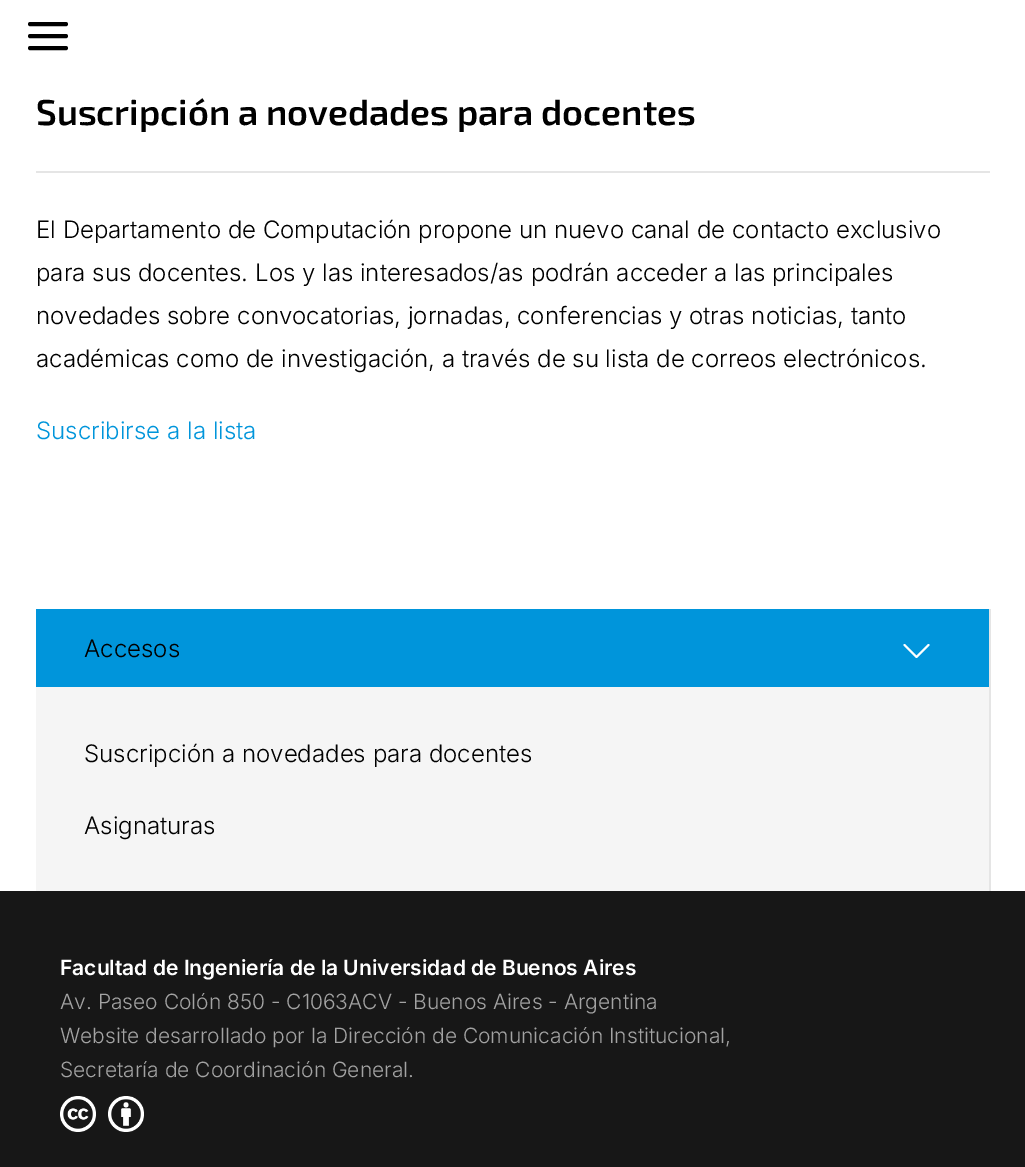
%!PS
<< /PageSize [1025 1167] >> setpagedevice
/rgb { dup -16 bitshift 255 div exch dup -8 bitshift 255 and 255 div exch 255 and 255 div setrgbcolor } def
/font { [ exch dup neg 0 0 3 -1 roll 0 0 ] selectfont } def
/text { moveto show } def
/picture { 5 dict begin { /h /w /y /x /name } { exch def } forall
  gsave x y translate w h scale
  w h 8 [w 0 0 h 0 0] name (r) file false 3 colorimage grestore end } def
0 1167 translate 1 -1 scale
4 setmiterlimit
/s1 { /Exo2-SemiBold 36 font 16#000000 rgb } def
/s2 { /Inter-Light 24 font 16#000000 rgb } def
/s3 { /Inter-Light 24 font 16#0095DB rgb } def
/s4 { /Inter-SemiBold 21 font 16#FFFFFF rgb } def
/s5 { /Inter-Light 21 font 16#A3A3A3 rgb } def
16#FFFFFF rgb
0 0 1025 1167 rectfill
16#000000 rgb
4 setlinewidth
1 setlinecap
1 setlinejoin
30 36 moveto 66 36 lineto 30 24 moveto 66 24 lineto 30 48 moveto 66 48 lineto stroke
16#E5E5E5 rgb
36 171 954 2 rectfill
s1
(Suscripción a novedades para docentes) 36 125 text
s2
(El Departamento de Computación propone un nuevo canal de contacto exclusivo) 36 238 text
(para sus docentes. Los y las interesados/as podrán acceder a las principales) 36 281 text
(novedades sobre convocatorias, jornadas, conferencias y otras noticias, tanto) 36 324 text
(académicas como de investigación, a través de su lista de correos electrónicos.) 36 367 text
s3
(Suscribirse a la lista) 36 439 text
16#F5F5F5 rgb
36 687 953 204 rectfill
16#E5E5E5 rgb
989 609 2 282 rectfill
16#0095DB rgb
36 609 953 78 rectfill
s2
(Accesos) 84 657 text
16#FFFFFF rgb
2 setlinewidth
904.5 645 moveto 916.5 657 lineto 928.5 645 lineto stroke
s2
(Suscripción a novedades para docentes) 84 762 text
(Asignaturas) 84 834 text
16#171717 rgb
0 891 1025 276 rectfill
s4
(Facultad de Ingeniería de la Universidad de Buenos Aires) 60 975 text
s5
(Av. Paseo Colón 850 - C1063ACV - Buenos Aires - Argentina) 60 1009 text
(Website desarrollado por la Dirección de Comunicación Institucional,) 60 1043 text
(Secretaría de Coordinación General.) 60 1077 text
(pic1.raw) 60 1096 36 36 picture
(pic2.raw) 108 1096 36 36 picture
showpage
